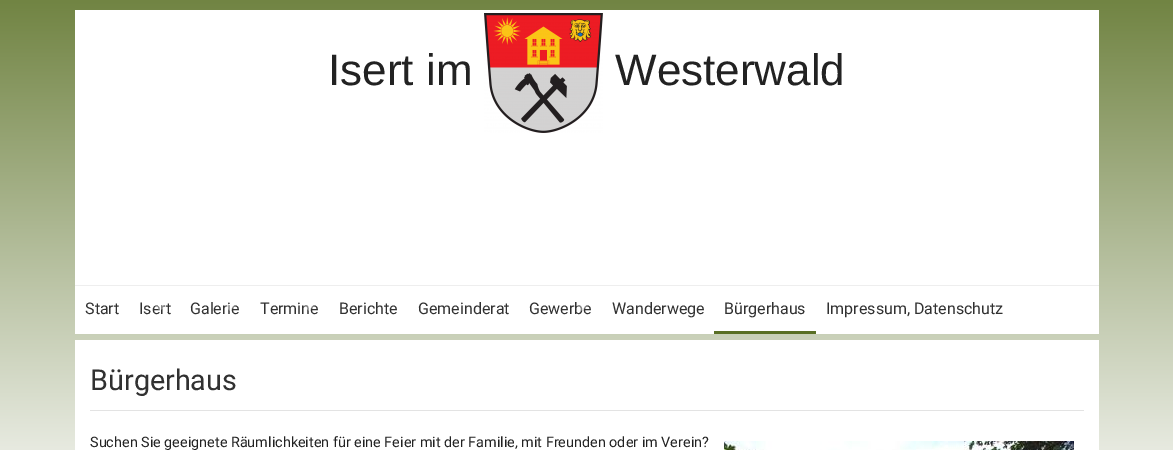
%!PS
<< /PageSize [1173 450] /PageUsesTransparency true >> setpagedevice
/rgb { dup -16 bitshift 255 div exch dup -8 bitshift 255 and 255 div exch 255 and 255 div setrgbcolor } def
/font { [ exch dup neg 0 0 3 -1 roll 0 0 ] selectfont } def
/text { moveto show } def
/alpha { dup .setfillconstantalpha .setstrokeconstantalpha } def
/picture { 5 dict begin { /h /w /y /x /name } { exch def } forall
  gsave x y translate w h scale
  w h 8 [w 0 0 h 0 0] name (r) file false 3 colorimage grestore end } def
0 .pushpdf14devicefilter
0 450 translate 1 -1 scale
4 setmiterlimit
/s1 { /LiberationSans-Regular 44 font 16#222222 rgb } def
/s2 { /Roboto-Regular 16 font 16#313131 rgb } def
/s3 { /Roboto-Regular 28.75 font 16#313131 rgb } def
/s4 { /Roboto-Regular 14.4 font 16#222222 rgb } def
16#FFFFFF rgb
0 0 1173 450 rectfill
gsave 0 0 moveto 1173 0 lineto 1173 450 lineto 0 450 lineto closepath clip newpath
<< /ShadingType 2 /ColorSpace /DeviceRGB /Coords [587 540 587 -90] /Extend [true true] /Function << /FunctionType 2 /Domain [0 1] /C0 [1 1 1] /C1 [0.349 0.435 0.141] /N 1 >> >> shfill grestore
75 10 1024 324 rectfill
s1
(Isert im) 328 85 text
(pic1.raw) 484 13 119 120 picture
(Westerwald) 615 85 text
16#EEEEEE rgb
75 285 1024 1 rectfill
s2
(Start) 85 314 text
(Isert) 139 314 text
0.4 alpha
16#FFFFFF rgb
155 306 moveto 165 306 lineto 160 311 lineto closepath fill
1 alpha
s2
(Galerie) 190 314 text
0.4 alpha
16#FFFFFF rgb
225 306 moveto 235 306 lineto 230 311 lineto closepath fill
1 alpha
s2
(Termine) 260 314 text
0.4 alpha
16#FFFFFF rgb
304 306 moveto 314 306 lineto 309 311 lineto closepath fill
1 alpha
s2
(Berichte) 339 314 text
(Gemeinderat) 418 314 text
(Gewerbe) 529 314 text
0.4 alpha
16#FFFFFF rgb
577 306 moveto 587 306 lineto 582 311 lineto closepath fill
1 alpha
s2
(Wanderwege) 612 314 text
16#596F24 rgb
714 331 102 3 rectfill
s2
(Bürgerhaus) 724 314 text
(Impressum, Datenschutz) 826 314 text
16#FFFFFF rgb
75 340 1024 110 rectfill
16#E3E3E3 rgb
90 410 994 1 rectfill
s3
(Bürgerhaus) 90 390 text
s4
(Suchen Sie geeignete Räumlichkeiten für eine Feier mit der Familie, mit Freunden oder im Verein?) 90 447 text
(pic2.raw) 724 441 350 9 picture
.poppdf14devicefilter showpage
